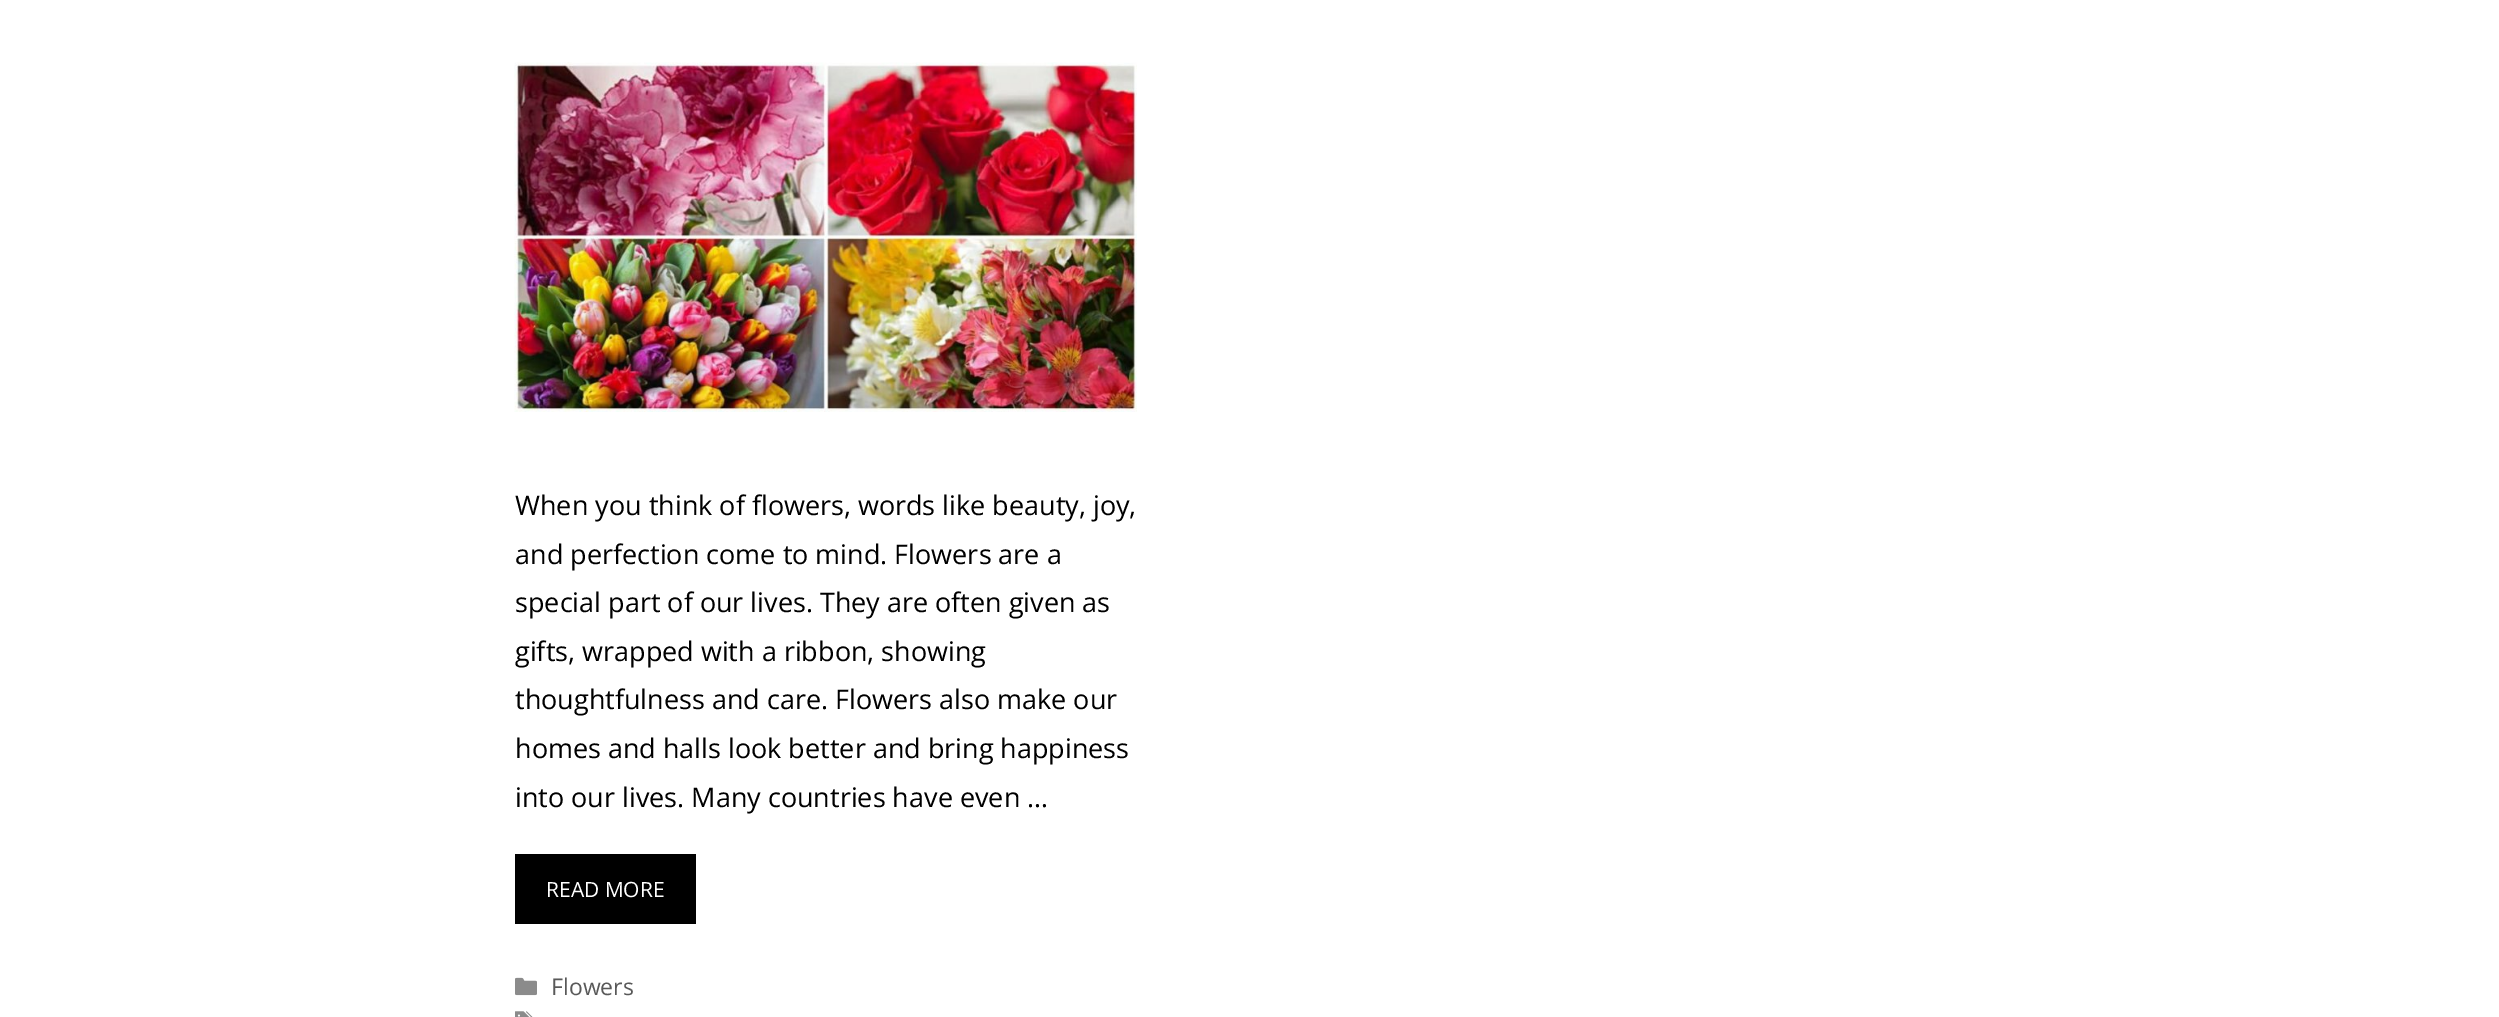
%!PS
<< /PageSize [2499 1017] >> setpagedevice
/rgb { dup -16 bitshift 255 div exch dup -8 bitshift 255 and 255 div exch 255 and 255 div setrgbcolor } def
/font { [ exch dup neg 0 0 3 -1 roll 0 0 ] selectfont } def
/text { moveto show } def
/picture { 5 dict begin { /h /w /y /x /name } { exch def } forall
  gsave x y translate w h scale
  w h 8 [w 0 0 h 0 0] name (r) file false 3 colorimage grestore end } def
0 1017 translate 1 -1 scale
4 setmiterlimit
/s1 { /OpenSans-Regular 27 font 16#000000 rgb } def
/s2 { /OpenSans-Regular 21 font 16#FFFFFF rgb } def
/s3 { /OpenSans-Regular 23 font 16#595959 rgb } def
16#FFFFFF rgb
0 0 2499 1017 rectfill
(pic1.raw) 514 62 623 350 picture
s1
(When you think of flowers, words like beauty, joy,) 515 515 text
(and perfection come to mind. Flowers are a) 515 564 text
(special part of our lives. They are often given as) 515 612 text
(gifts, wrapped with a ribbon, showing) 515 661 text
(thoughtfulness and care. Flowers also make our) 515 709 text
(homes and halls look better and bring happiness) 515 758 text
(into our lives. Many countries have even …) 515 807 text
515 854 181 70 rectfill
s2
(READ MORE) 546 897 text
(pic2.raw) 515 977 22 19 picture
s3
(Flowers) 551 995 text
(pic3.raw) 515 1011 18 6 picture
showpage
